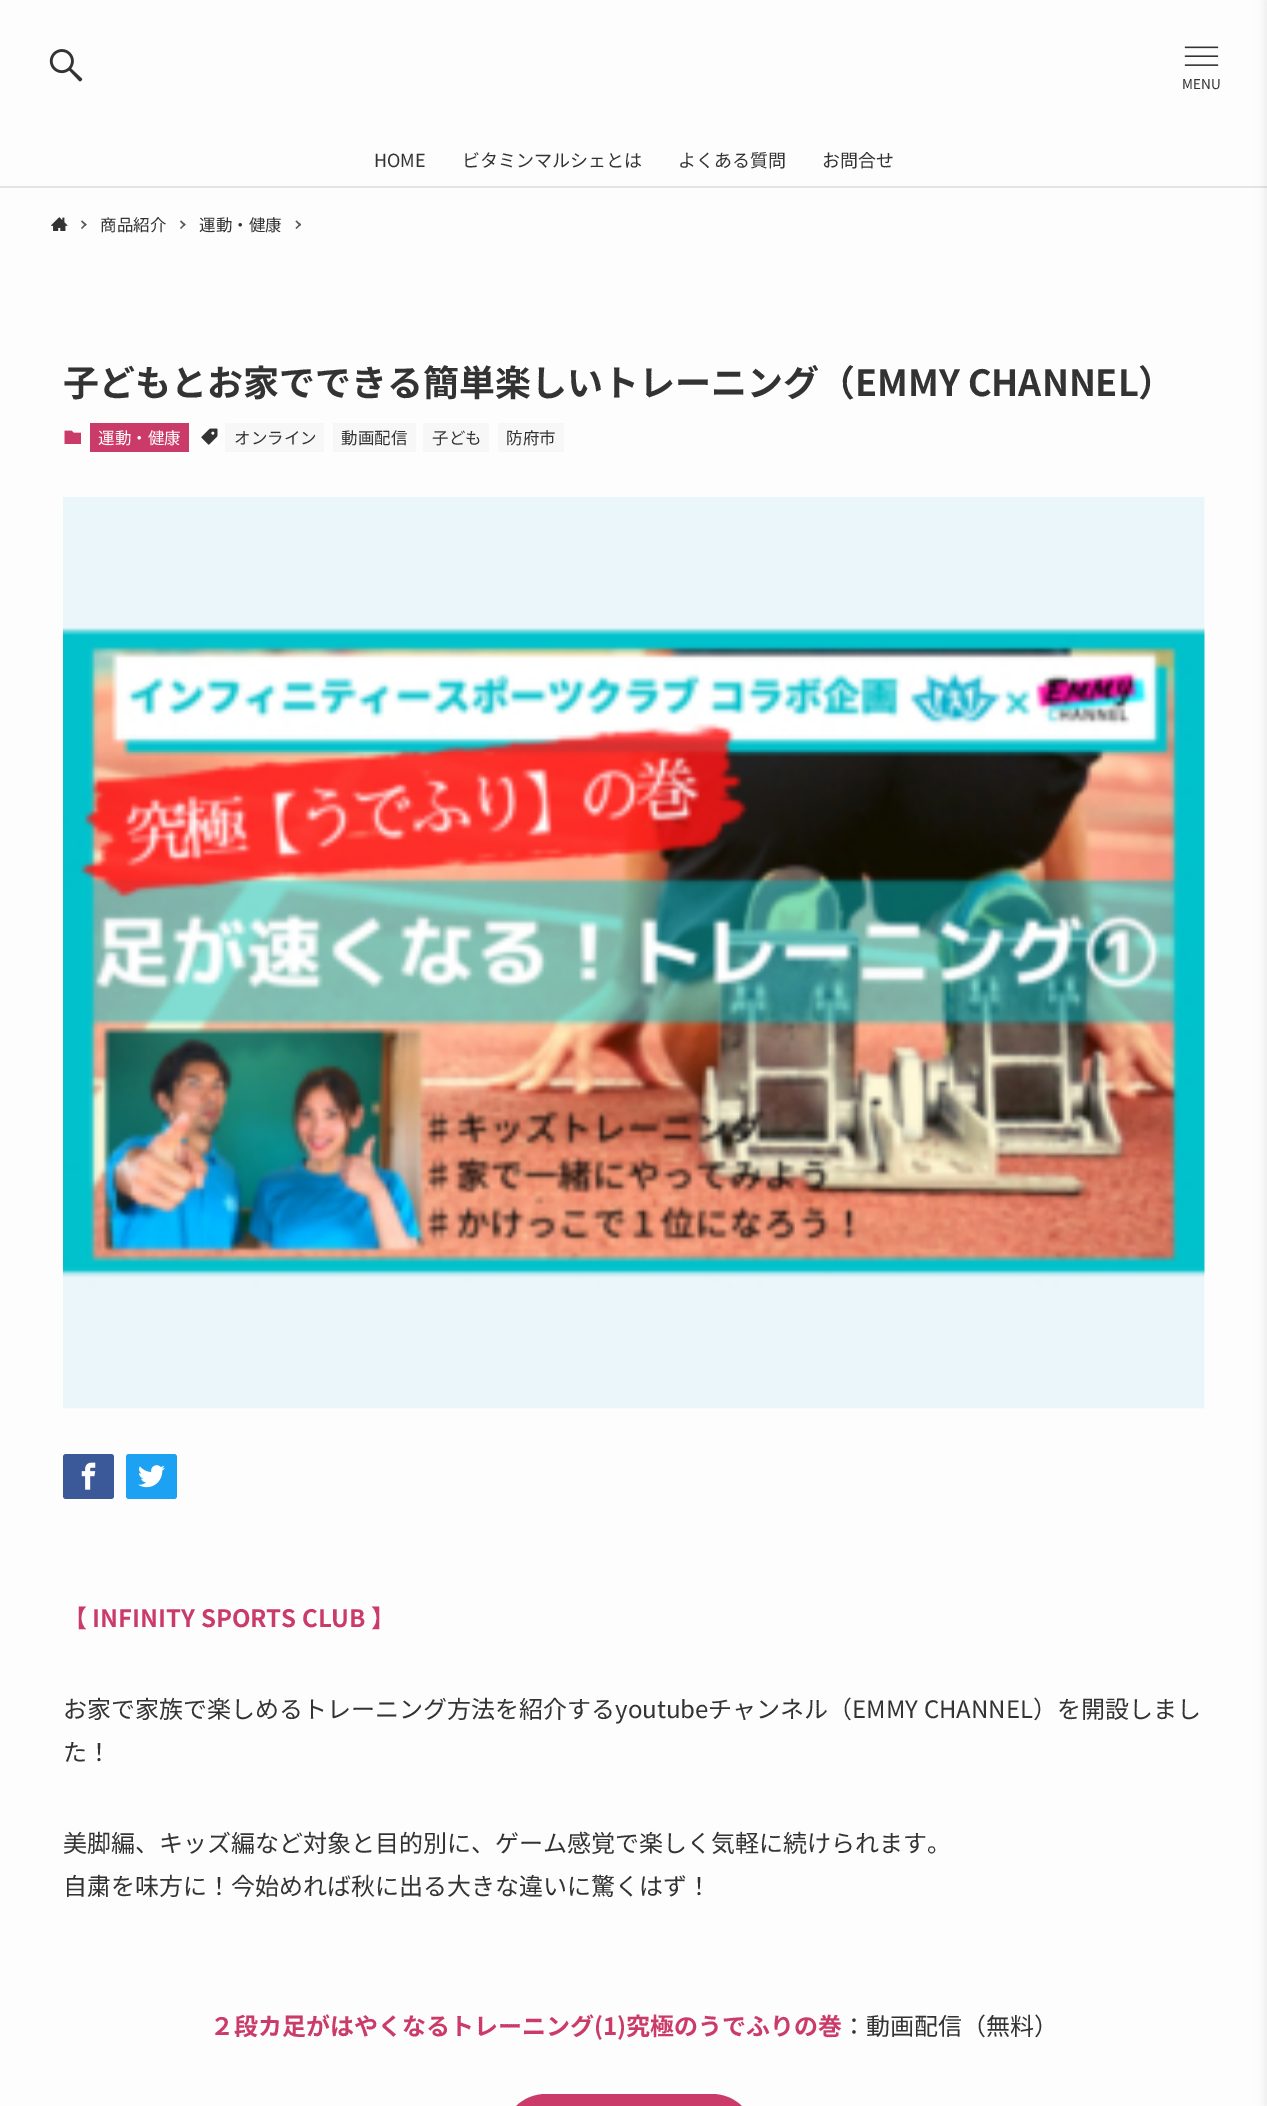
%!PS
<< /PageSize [1267 2106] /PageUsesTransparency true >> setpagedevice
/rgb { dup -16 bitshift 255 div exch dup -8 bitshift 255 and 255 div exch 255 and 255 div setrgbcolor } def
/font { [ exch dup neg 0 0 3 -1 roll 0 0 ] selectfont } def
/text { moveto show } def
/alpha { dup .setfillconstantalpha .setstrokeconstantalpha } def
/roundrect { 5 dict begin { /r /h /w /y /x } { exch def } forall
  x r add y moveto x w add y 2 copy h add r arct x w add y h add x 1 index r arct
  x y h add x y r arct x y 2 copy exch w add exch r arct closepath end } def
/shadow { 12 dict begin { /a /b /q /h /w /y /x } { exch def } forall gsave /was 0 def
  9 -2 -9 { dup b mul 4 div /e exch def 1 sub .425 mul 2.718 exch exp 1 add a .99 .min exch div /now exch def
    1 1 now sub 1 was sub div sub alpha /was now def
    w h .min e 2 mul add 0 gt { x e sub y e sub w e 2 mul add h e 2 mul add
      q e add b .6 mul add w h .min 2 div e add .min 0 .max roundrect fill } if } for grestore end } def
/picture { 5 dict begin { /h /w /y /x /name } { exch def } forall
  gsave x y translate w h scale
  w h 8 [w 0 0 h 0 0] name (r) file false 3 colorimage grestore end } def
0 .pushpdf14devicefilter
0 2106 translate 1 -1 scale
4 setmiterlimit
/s1 { /NotoSansJP-Regular 13.5 font 16#333333 rgb } def
/s2 { /NotoSansJP-Regular 18 font 16#333333 rgb } def
/s3 { /NotoSansJP-Regular 16.5 font 16#333333 rgb } def
/s4 { /NotoSansJP-Bold 36 font 16#333333 rgb } def
/s5 { /NotoSansJP-Regular 16.5 font 16#FFFFFF rgb } def
/s6 { /NotoSansJP-Bold 24 font 16#CB3B6A rgb } def
/s7 { /NotoSansJP-Regular 24 font 16#333333 rgb } def
16#FDFDFD rgb
0 0 1267 2106 rectfill
16#E4E4E4 rgb
0 186 1267 2 rectfill
(pic1.raw) 49 49 34 33 picture
(pic2.raw) 1184 46 35 20 picture
s1
(MENU) 1182 89 text
s2
(HOME) 374 167 text
(ビタミンマルシェとは) 462 167 text
(よくある質問) 678 167 text
(お問合せ) 822 167 text
16#000000 rgb
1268 0 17 2106 0 6 0.12 shadow
(pic3.raw) 51 217 17 14 picture
16#5B5B5B rgb
82 220.5 moveto 86.5 224.5 lineto 85.5 226 lineto 81 221.5 lineto closepath fill
85.5 223.5 moveto 86.5 224.5 lineto 82 229 lineto 81 228 lineto closepath fill
s3
(商品紹介) 100 231 text
16#5B5B5B rgb
181 220.5 moveto 185.5 224.5 lineto 184.5 226 lineto 180 221.5 lineto closepath fill
184.5 223.5 moveto 185.5 224.5 lineto 181 229 lineto 180 228 lineto closepath fill
s3
(運動・健康) 199 231 text
16#5B5B5B rgb
296.5 220.5 moveto 301 224.5 lineto 300 226 lineto 295.5 221.5 lineto closepath fill
300 223.5 moveto 301 224.5 lineto 296.5 229 lineto 295.5 228 lineto closepath fill
s4
(子どもとお家でできる簡単楽しいトレーニング（EMMY CHANNEL）) 63 396 text
(pic4.raw) 64 430 17 14 picture
16#CB3B6A rgb
90 423 99 29 rectfill
s5
(運動・健康) 98 444 text
(pic5.raw) 201 428 17 17 picture
16#F7F7F7 rgb
225 423 99 29 rectfill
s3
(オンライン) 234 444 text
16#F7F7F7 rgb
333 423 83 29 rectfill
s3
(動画配信) 341 444 text
16#F7F7F7 rgb
423 423 66 29 rectfill
s3
(子ども) 432 444 text
16#F7F7F7 rgb
498 423 66 29 rectfill
s3
(防府市) 506 444 text
(pic6.raw) 63 497 1142 912 picture
16#3B5998 rgb
63 1454 51 45 3 roundrect fill
(pic7.raw) 81 1462 15 28 picture
16#1DA1F2 rgb
126 1454 51 45 3 roundrect fill
(pic8.raw) 138 1465 27 23 picture
s6
(【 INFINITY SPORTS CLUB 】) 63 1627 text
s7
(お家で家族で楽しめるトレーニング方法を紹介するyoutubeチャンネル（EMMY CHANNEL）を開設しまし) 63 1718 text
(た！) 63 1761 text
(美脚編、キッズ編など対象と目的別に、ゲーム感覚で楽しく気軽に続けられます。) 63 1852 text
(自粛を味方に！今始めれば秋に出る大きな違いに驚くはず！) 63 1895 text
s6
(２段カ足がはやくなるトレーニング\(1\)究極のうでふりの巻) 210 2035 text
s7
(：動画配信（無料）) 842 2035 text
16#CB3B6A rgb
503 2094 252 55 43 roundrect fill
.poppdf14devicefilter showpage
